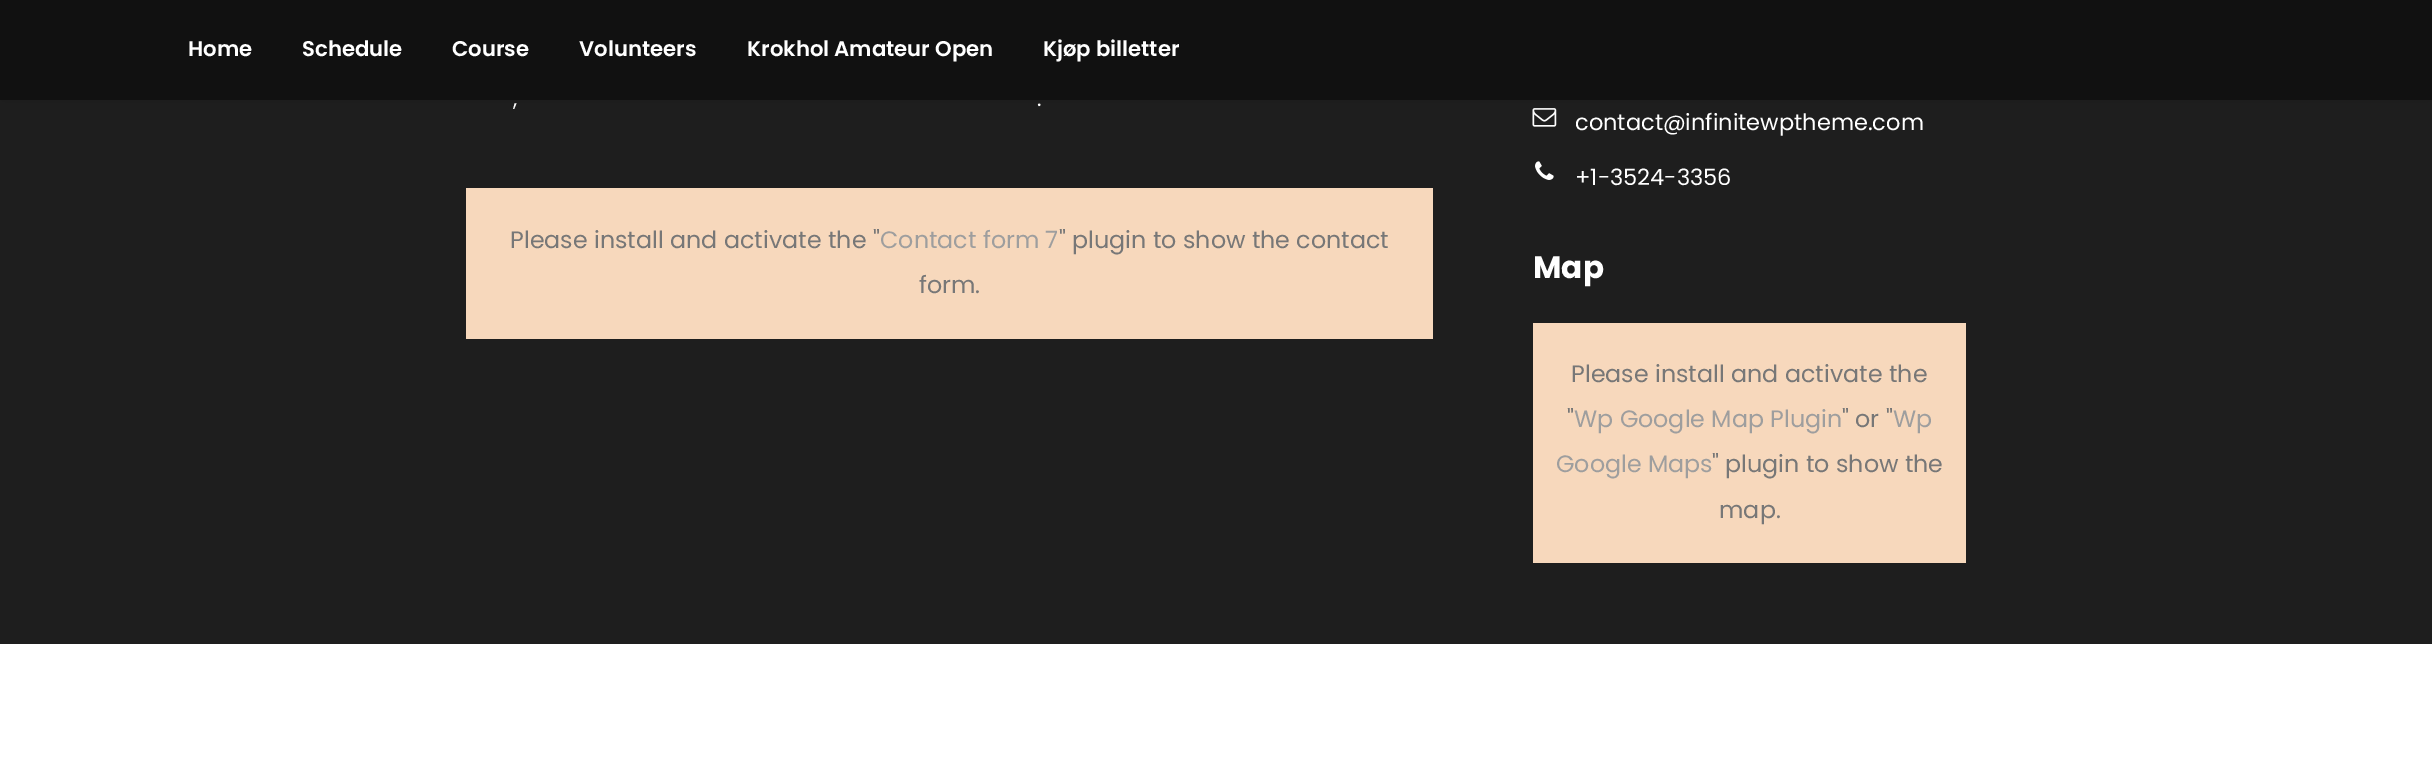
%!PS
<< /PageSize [2432 780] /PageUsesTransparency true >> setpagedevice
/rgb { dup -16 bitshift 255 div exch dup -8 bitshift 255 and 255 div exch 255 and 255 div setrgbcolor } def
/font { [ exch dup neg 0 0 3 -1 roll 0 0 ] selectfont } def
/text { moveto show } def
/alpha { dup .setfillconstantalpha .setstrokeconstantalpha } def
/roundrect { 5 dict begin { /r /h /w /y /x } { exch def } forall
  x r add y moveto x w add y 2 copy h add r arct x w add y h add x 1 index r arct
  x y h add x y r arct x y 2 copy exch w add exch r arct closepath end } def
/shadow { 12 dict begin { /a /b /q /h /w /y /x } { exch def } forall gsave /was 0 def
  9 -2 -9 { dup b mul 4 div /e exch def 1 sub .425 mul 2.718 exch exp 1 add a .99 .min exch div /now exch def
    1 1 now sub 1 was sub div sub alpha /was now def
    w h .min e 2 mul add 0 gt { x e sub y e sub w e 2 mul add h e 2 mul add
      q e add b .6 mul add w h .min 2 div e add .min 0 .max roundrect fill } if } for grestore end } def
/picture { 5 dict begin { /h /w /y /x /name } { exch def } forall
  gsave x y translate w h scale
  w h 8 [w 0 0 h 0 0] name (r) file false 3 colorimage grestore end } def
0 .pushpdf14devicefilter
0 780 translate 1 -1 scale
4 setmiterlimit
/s1 { /Poppins-SemiBold 21.25 font 16#FFFFFF rgb } def
/s2 { /Poppins-Regular 21.25 font 16#FFFFFF rgb } def
/s3 { /Poppins-Regular 23.75 font 16#777777 rgb } def
/s4 { /Poppins-Regular 23.75 font 16#9E9E9E rgb } def
/s5 { /Poppins-Regular 22.5 font 16#FFFFFF rgb } def
/s6 { /Poppins-Bold 31 font 16#FFFFFF rgb } def
16#FFFFFF rgb
0 0 2432 780 rectfill
16#1E1E1E rgb
0 100 2432 544 rectfill
(pic1.raw) 1532 108 25 19 picture
16#000000 rgb
0 0 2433 100 0 12.5 0.1 shadow
16#111111 rgb
0 0 2432 100 rectfill
s1
(Home) 188 56 text
(Schedule) 302 56 text
(Course) 452 56 text
(Volunteers) 579 56 text
(Krokhol Amateur Open) 747 56 text
(Kjøp billetter) 1043 56 text
s2
(,) 513 106 text
(.) 1037 106 text
16#F7D8BC rgb
466 188 967 151 rectfill
s3
(Please install and activate the ") 510 248 text
s4
(Contact form 7) 880 248 text
s3
(" plugin to show the contact) 1059 248 text
(form.) 919 293 text
s5
(contact@infinitewptheme.com) 1575 130 text
(pic2.raw) 1535 161 19 19 picture
(+1-3524-3356) 1575 185 text
s6
(Map) 1533 278 text
16#F7D8BC rgb
1533 323 433 240 rectfill
s3
(Please install and activate the) 1571 382 text
(") 1567 427 text
s4
(Wp Google Map Plugin) 1574 427 text
s3
(" or ") 1842 427 text
s4
(Wp) 1893 427 text
(Google Maps) 1556 472 text
s3
(" plugin to show the) 1712 472 text
(map.) 1719 518 text
.poppdf14devicefilter showpage
